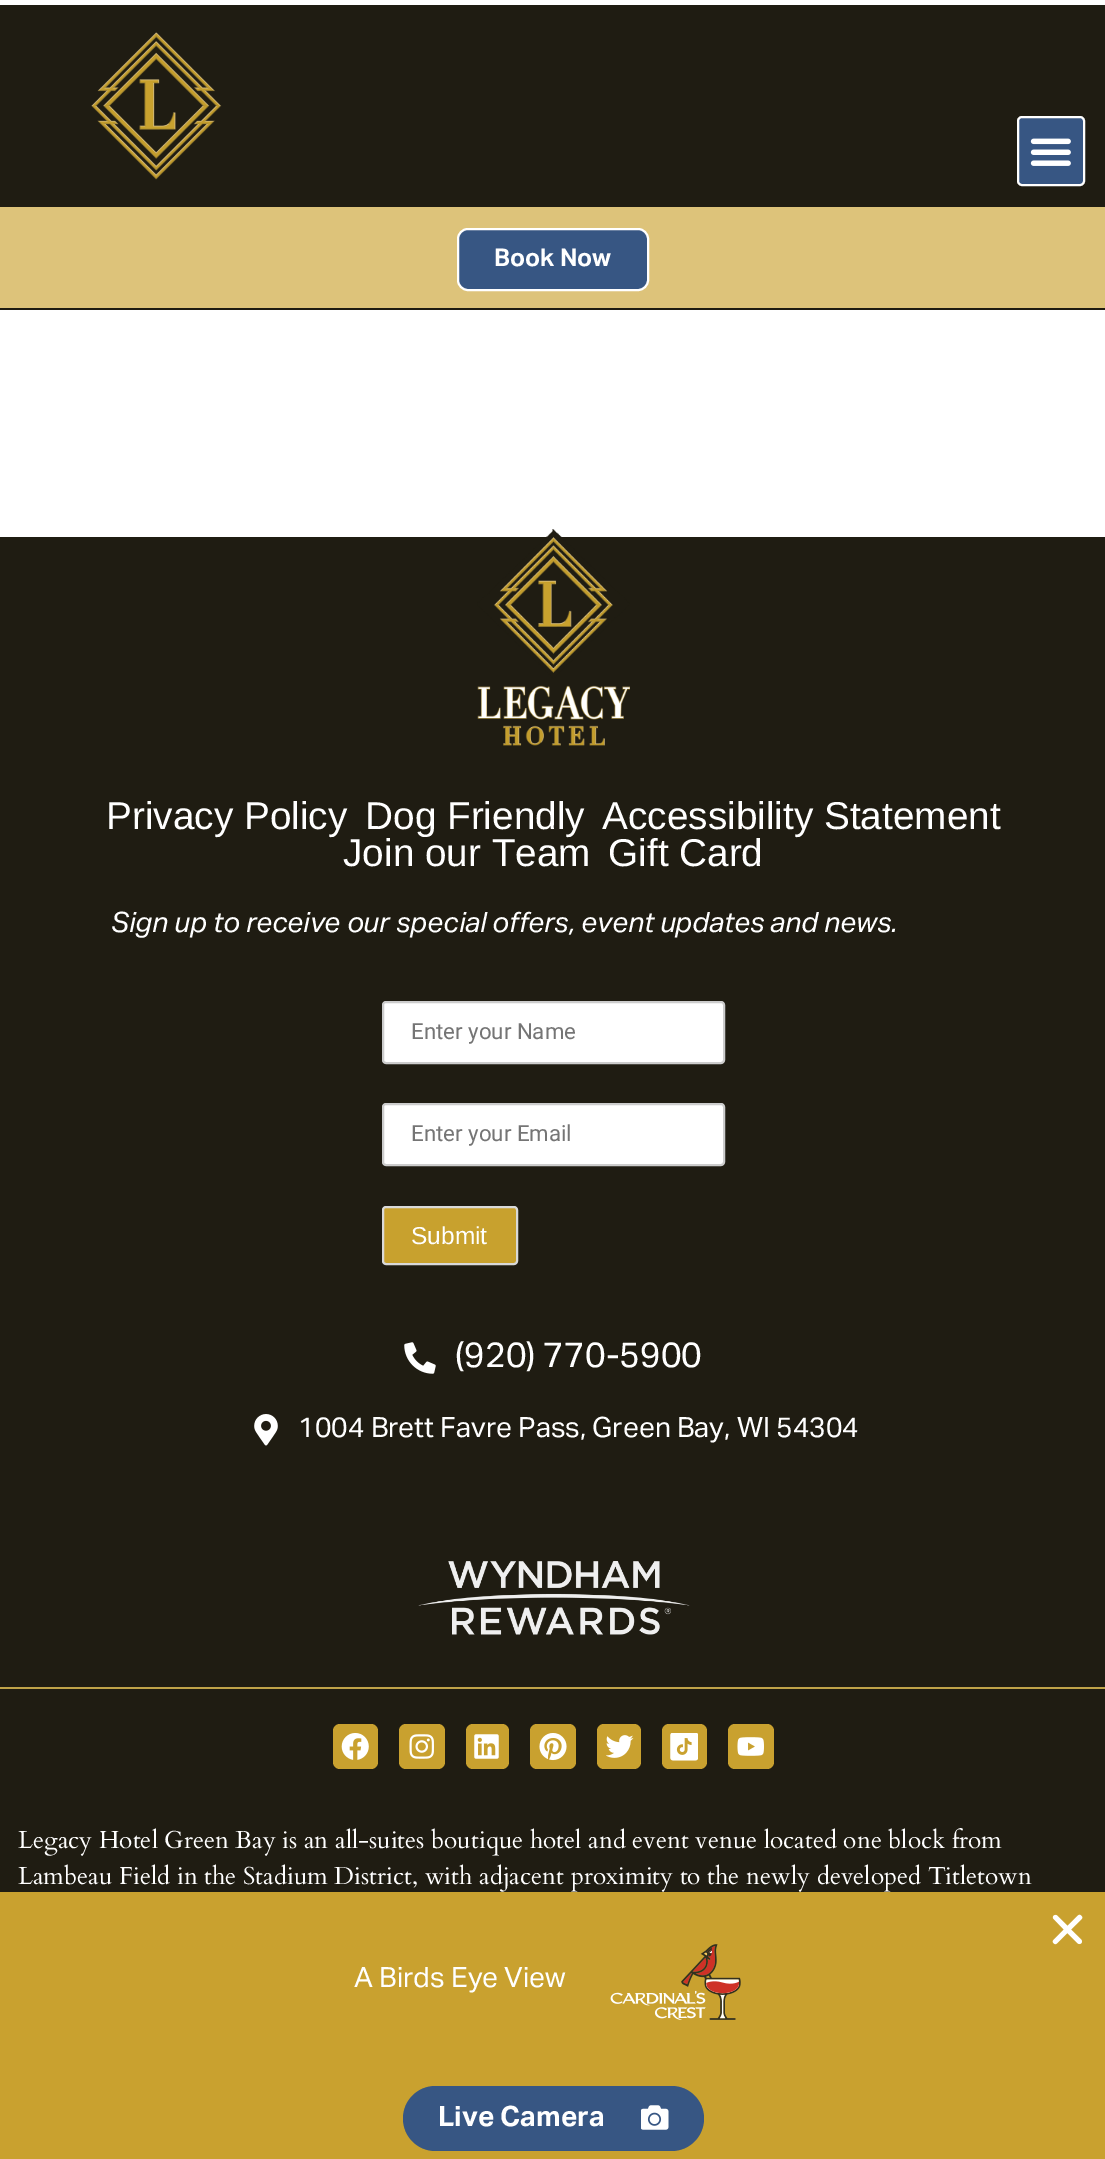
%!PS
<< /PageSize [1105 2159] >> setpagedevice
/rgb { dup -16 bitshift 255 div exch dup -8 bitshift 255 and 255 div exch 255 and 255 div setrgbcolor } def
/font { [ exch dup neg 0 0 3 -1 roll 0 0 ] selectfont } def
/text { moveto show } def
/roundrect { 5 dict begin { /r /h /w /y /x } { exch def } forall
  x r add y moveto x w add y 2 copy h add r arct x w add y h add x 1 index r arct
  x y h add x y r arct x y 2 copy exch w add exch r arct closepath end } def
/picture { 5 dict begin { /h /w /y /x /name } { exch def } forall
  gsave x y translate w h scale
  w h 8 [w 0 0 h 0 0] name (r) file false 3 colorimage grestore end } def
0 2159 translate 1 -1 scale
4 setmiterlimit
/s1 { /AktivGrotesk-Bold 24.5 font 16#FFFFFF rgb } def
/s2 { /LiberationSans-Regular 38.75 font 16#FFFFFF rgb } def
/s3 { /AktivGrotesk-Italic 28 font 16#FFFFFF rgb } def
/s4 { /Roboto-Regular 22.25 font 16#757575 rgb } def
/s5 { /LiberationSans-Regular 24.5 font 16#FFFFFF rgb } def
/s6 { /AktivGrotesk-Regular 35 font 16#FFFFFF rgb } def
/s7 { /AktivGrotesk-Regular 28 font 16#FFFFFF rgb } def
/s8 { /Cardo-Regular 24.5 font 16#FFFFFF rgb } def
/s9 { /AktivGrotesk-Bold 28 font 16#FFFFFF rgb } def
16#FFFFFF rgb
0 0 1105 2159 rectfill
16#1F1C12 rgb
0 5 1105 202 rectfill
(pic1.raw) 91 32 131 148 picture
16#375683 rgb
1018 117 66 68 4 roundrect gsave fill grestore
16#FFFFFF rgb
2 setlinewidth
stroke
(pic2.raw) 1030 138 41 28 picture
16#DDC37A rgb
0 207 1105 101 rectfill
16#1F1C12 rgb
0 308 1105 2 rectfill
16#375683 rgb
458 229 190 61 10 roundrect gsave fill grestore
16#FFFFFF rgb
stroke
s1
(Book Now) 494 266 text
16#1F1C12 rgb
0 537 1105 1355 rectfill
(pic3.raw) 477 529 153 217 picture
s2
(Privacy Policy) 106 829 text
(Dog Friendly) 365 829 text
(Accessibility Statement) 602 829 text
(Join our Team) 343 866 text
(Gift Card) 608 866 text
s3
(Sign up to receive our special offers, event updates and news.) 111 932 text
383 1002 341 61 3 roundrect gsave fill grestore
16#CCCCCC rgb
stroke
s4
(Enter your Name) 411 1039 text
16#FFFFFF rgb
383 1104 341 61 3 roundrect gsave fill grestore
16#CCCCCC rgb
stroke
s4
(Enter your Email) 411 1141 text
16#C8A12E rgb
383 1207 134 57 3 roundrect gsave fill grestore
16#D9D9D9 rgb
stroke
s5
(Submit) 411 1244 text
(pic4.raw) 404 1342 32 32 picture
s6
(\(920\) 770-5900) 455 1367 text
(pic5.raw) 254 1414 24 32 picture
s7
(1004 Brett Favre Pass, Green Bay, WI 54304) 298 1437 text
(pic6.raw) 418 1561 272 74 picture
16#BFA349 rgb
0 1687 1105 2 rectfill
16#C9A12F rgb
333 1724 45 45 7 roundrect fill
(pic7.raw) 341 1733 28 27 picture
399 1724 46 45 7 roundrect fill
(pic8.raw) 409 1734 25 25 picture
466 1724 43 45 7 roundrect fill
(pic9.raw) 474 1734 25 25 picture
530 1724 46 45 7 roundrect fill
(pic10.raw) 539 1733 28 28 picture
597 1724 44 45 7 roundrect fill
(pic11.raw) 606 1735 28 23 picture
662 1724 45 45 7 roundrect fill
(pic12.raw) 670 1733 28 28 picture
728 1724 46 45 7 roundrect fill
(pic13.raw) 737 1737 27 19 picture
s8
(Legacy Hotel Green Bay is an all-suites boutique hotel and event venue located one block from) 18 1848 text
(Lambeau Field in the Stadium District, with adjacent proximity to the newly developed Titletown) 18 1884 text
16#C9A12F rgb
0 1892 1105 267 rectfill
(pic14.raw) 1052 1914 31 31 picture
s7
(A Birds Eye View) 354 1987 text
(pic15.raw) 610 1944 131 76 picture
16#375683 rgb
403 2086 301 65 32.5 roundrect fill
s9
(Live Camera) 438 2126 text
(pic16.raw) 641 2105 28 25 picture
showpage
